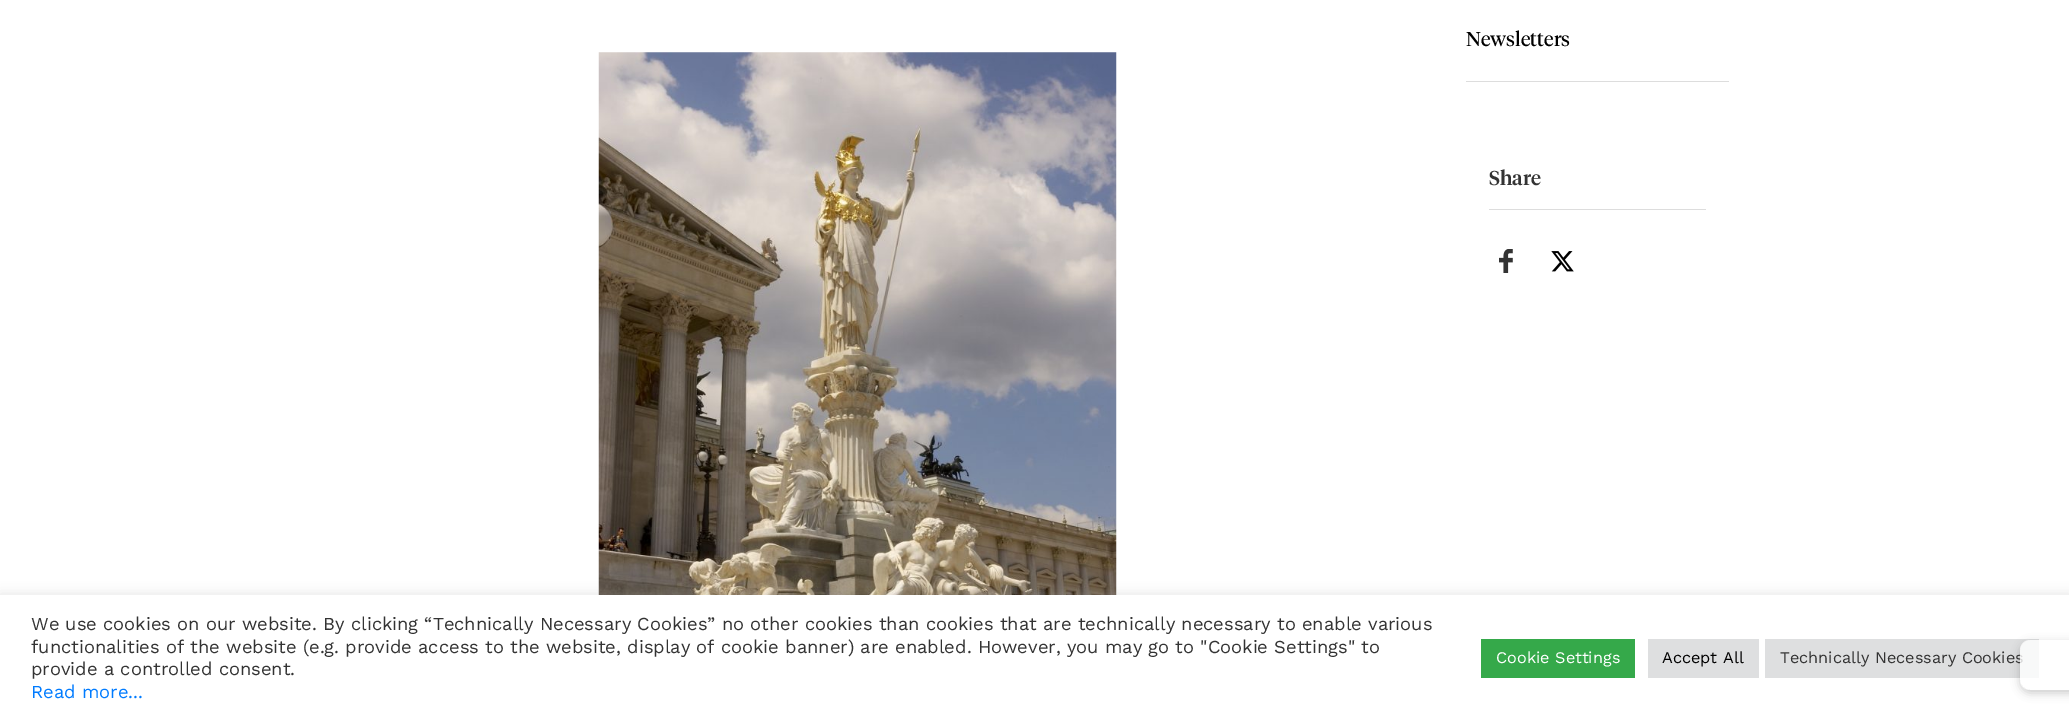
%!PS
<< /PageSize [2069 720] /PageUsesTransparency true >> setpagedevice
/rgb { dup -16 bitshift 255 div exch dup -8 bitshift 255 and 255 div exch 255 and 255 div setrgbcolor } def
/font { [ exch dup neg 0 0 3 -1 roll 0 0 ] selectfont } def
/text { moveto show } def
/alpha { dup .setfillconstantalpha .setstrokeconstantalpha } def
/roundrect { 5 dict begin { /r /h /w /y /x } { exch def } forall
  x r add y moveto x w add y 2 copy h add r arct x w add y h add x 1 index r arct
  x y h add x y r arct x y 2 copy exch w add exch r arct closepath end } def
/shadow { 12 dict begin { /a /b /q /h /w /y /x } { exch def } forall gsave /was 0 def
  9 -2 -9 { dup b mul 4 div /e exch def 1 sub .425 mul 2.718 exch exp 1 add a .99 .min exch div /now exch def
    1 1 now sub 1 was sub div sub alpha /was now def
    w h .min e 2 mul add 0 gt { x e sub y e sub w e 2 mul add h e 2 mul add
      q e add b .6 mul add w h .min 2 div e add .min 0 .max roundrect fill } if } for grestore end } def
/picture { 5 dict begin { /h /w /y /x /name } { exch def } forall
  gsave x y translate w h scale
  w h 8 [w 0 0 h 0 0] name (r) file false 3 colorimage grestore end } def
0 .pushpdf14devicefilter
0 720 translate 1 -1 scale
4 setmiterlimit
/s1 { /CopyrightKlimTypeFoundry-Regular 20 font 16#000000 rgb } def
/s2 { /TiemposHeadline-Medium 20 font 16#333333 rgb } def
/s3 { /WorkSans-Regular 16.25 font 16#333333 rgb } def
/s4 { /WorkSans-Regular 18.33 font 16#333333 rgb } def
/s5 { /WorkSans-Regular 18.33 font 16#007BFF rgb } def
/s6 { /WorkSans-Regular 16.25 font 16#FFFFFF rgb } def
/s7 { /WorkSans-Regular 16.25 font 16#000000 rgb } def
16#FFFFFF rgb
0 0 2069 720 rectfill
(pic1.raw) 598 52 519 543 picture
16#DDDDDD rgb
1466 81 263 1 rectfill
s1
(Newsletters) 1466 46 text
16#DDDDDD rgb
1489 209 217 1 rectfill
s2
(Share) 1489 185 text
(pic2.raw) 1499 249 14 24 picture
(pic3.raw) 1551 251 23 21 picture
16#ACABAB rgb
0 594 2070 125 0 6 0.3 shadow
16#FFFFFF rgb
0 595 2069 125 rectfill
16#DEDFE0 rgb
1765 639 274 39 rectfill
gsave
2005 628 moveto 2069 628 lineto 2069 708 lineto 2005 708 lineto closepath 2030 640 moveto 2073 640 lineto 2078.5 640 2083 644.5 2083 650 curveto 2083 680 lineto 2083 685.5 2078.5 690 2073 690 curveto 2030 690 lineto 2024.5 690 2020 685.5 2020 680 curveto 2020 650 lineto 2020 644.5 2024.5 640 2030 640 curveto closepath eoclip newpath
16#000000 rgb
2020 643 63 50 10 4.5 0.2 shadow
grestore
s3
(Technically Necessary Cookies) 1780 663 text
0.8 alpha
16#FFFFFF rgb
2020 640 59 50 10 roundrect fill
1 alpha
s4
(We use cookies on our website. By clicking “Technically Necessary Cookies” no other cookies than cookies that are technically necessary to enable various) 31 630 text
(functionalities of the website \(e.g. provide access to the website, display of cookie banner\) are enabled. However, you may go to "Cookie Settings" to) 31 653 text
(provide a controlled consent.) 31 675 text
s5
(Read more...) 31 698 text
16#35A94A rgb
1481 639 154 39 rectfill
s6
(Cookie Settings) 1496 663 text
16#DEDFE0 rgb
1648 639 111 39 rectfill
s7
(Accept All) 1662 663 text
.poppdf14devicefilter showpage
